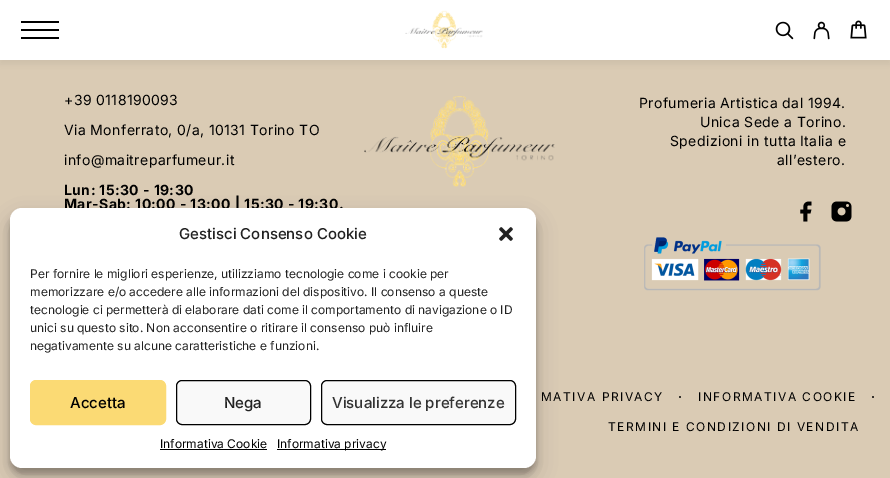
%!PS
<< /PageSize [890 478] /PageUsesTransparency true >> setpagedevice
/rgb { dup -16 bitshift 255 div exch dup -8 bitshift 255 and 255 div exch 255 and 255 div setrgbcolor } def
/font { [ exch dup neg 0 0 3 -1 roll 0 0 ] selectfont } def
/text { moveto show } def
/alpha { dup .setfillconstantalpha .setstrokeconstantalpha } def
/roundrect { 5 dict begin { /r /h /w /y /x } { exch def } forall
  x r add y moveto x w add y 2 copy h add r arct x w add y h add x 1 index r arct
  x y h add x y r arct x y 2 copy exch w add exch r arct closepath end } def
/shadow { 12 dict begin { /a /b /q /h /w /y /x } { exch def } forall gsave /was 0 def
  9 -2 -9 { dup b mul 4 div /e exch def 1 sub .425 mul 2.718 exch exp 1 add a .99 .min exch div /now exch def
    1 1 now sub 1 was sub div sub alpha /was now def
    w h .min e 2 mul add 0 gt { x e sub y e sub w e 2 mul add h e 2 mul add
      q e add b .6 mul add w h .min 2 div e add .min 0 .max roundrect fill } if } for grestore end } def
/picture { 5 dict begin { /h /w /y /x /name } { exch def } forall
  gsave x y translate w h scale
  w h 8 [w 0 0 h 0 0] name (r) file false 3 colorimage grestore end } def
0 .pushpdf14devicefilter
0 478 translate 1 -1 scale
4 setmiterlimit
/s1 { /Inter-Medium 15 font 16#222222 rgb } def
/s2 { /Inter-Regular 12 font 16#222222 rgb } def
/s3 { /Inter-Medium 15 font 16#000000 rgb } def
/s4 { /Inter-Medium 15 font 16#333333 rgb } def
/s5 { /Inter-Regular 12 font 16#000000 rgb } def
16#DACBB4 rgb
0 0 890 478 rectfill
16#000000 rgb
0 4 890 60 0 3.5 0.06 shadow
16#FFFFFF rgb
0 0 890 60 rectfill
16#000000 rgb
59 37 moveto 59 39 lineto 21 39 lineto 21 37 lineto closepath 59 29 moveto 59 31 lineto 21 31 lineto 21 29 lineto closepath 59 21 moveto 59 23 lineto 21 23 lineto 21 21 lineto closepath fill
(pic1.raw) 405 10 78 39 picture
(pic2.raw) 775 21 19 19 picture
(pic3.raw) 813 21 17 19 picture
(pic4.raw) 850 20 17 19 picture
/Inter-Regular 14 font
64 105 moveto 0.4 0 (+39 0118190093) ashow
64 135 moveto 0.4 0 (Via Monferrato, 0/a, 10131 Torino TO) ashow
64 165 moveto 0.4 0 (info@maitreparfumeur.it) ashow
/Inter-Bold 14 font
64 195 moveto 0.4 0 (Lun: 15:30 - 19:30) ashow
64 209 moveto 0.4 0 (Mar-Sab: 10:00 - 13:00 | 15:30 - 19:30.) ashow
(pic5.raw) 364 96 191 91 picture
/Inter-Regular 14 font
639 108 moveto 0.4 0 (Profumeria Artistica dal 1994.) ashow
700 127 moveto 0.4 0 (Unica Sede a Torino.) ashow
670 146 moveto 0.4 0 (Spedizioni in tutta Italia e) ashow
777 165 moveto 0.4 0 (all’estero.) ashow
(pic6.raw) 800 201 12 21 picture
(pic7.raw) 831 201 21 21 picture
(pic8.raw) 644 237 177 54 picture
/Inter-Regular 12 font
541 401 moveto 1.5 0 (MATIVA PRIVACY) ashow
16#37332D rgb
679 396 2 2 rectfill
16#000000 rgb
698 401 moveto 1.5 0 (INFORMATIVA COOKIE) ashow
16#37332D rgb
872 396 2 2 rectfill
16#000000 rgb
608 431 moveto 1.5 0 (TERMINI E CONDIZIONI DI VENDITA) ashow
10 214 526 260 12 3 0.23 shadow
10 218 526 260 12 10 0.19 shadow
16#FFFFFF rgb
10 208 526 260 12 roundrect fill
s1
(Gestisci Consenso Cookie) 179 239 text
(pic9.raw) 499 227 14 14 picture
s2
(Per fornire le migliori esperienze, utilizziamo tecnologie come i cookie per) 30 278 text
(memorizzare e/o accedere alle informazioni del dispositivo. Il consenso a queste) 30 296 text
(tecnologie ci permetterà di elaborare dati come il comportamento di navigazione o ID) 30 314 text
(unici su questo sito. Non acconsentire o ritirare il consenso può influire) 30 332 text
(negativamente su alcune caratteristiche e funzioni.) 30 350 text
16#FBDA74 rgb
30.5 380.5 135 44 5.5 roundrect gsave fill grestore
stroke
s3
(Accetta) 70 408 text
16#F9F9F9 rgb
176.5 380.5 134 44 5.5 roundrect gsave fill grestore
16#000000 rgb
stroke
s1
(Nega) 224 408 text
16#F9F9F9 rgb
321.5 380.5 194 44 5.5 roundrect gsave fill grestore
16#000000 rgb
stroke
s4
(Visualizza le preferenze) 332 408 text
s5
(Informativa Cookie) 160 448 text
160 449 107 1 rectfill
277 449 109 1 rectfill
(Informativa privacy) 277 448 text
.poppdf14devicefilter showpage
